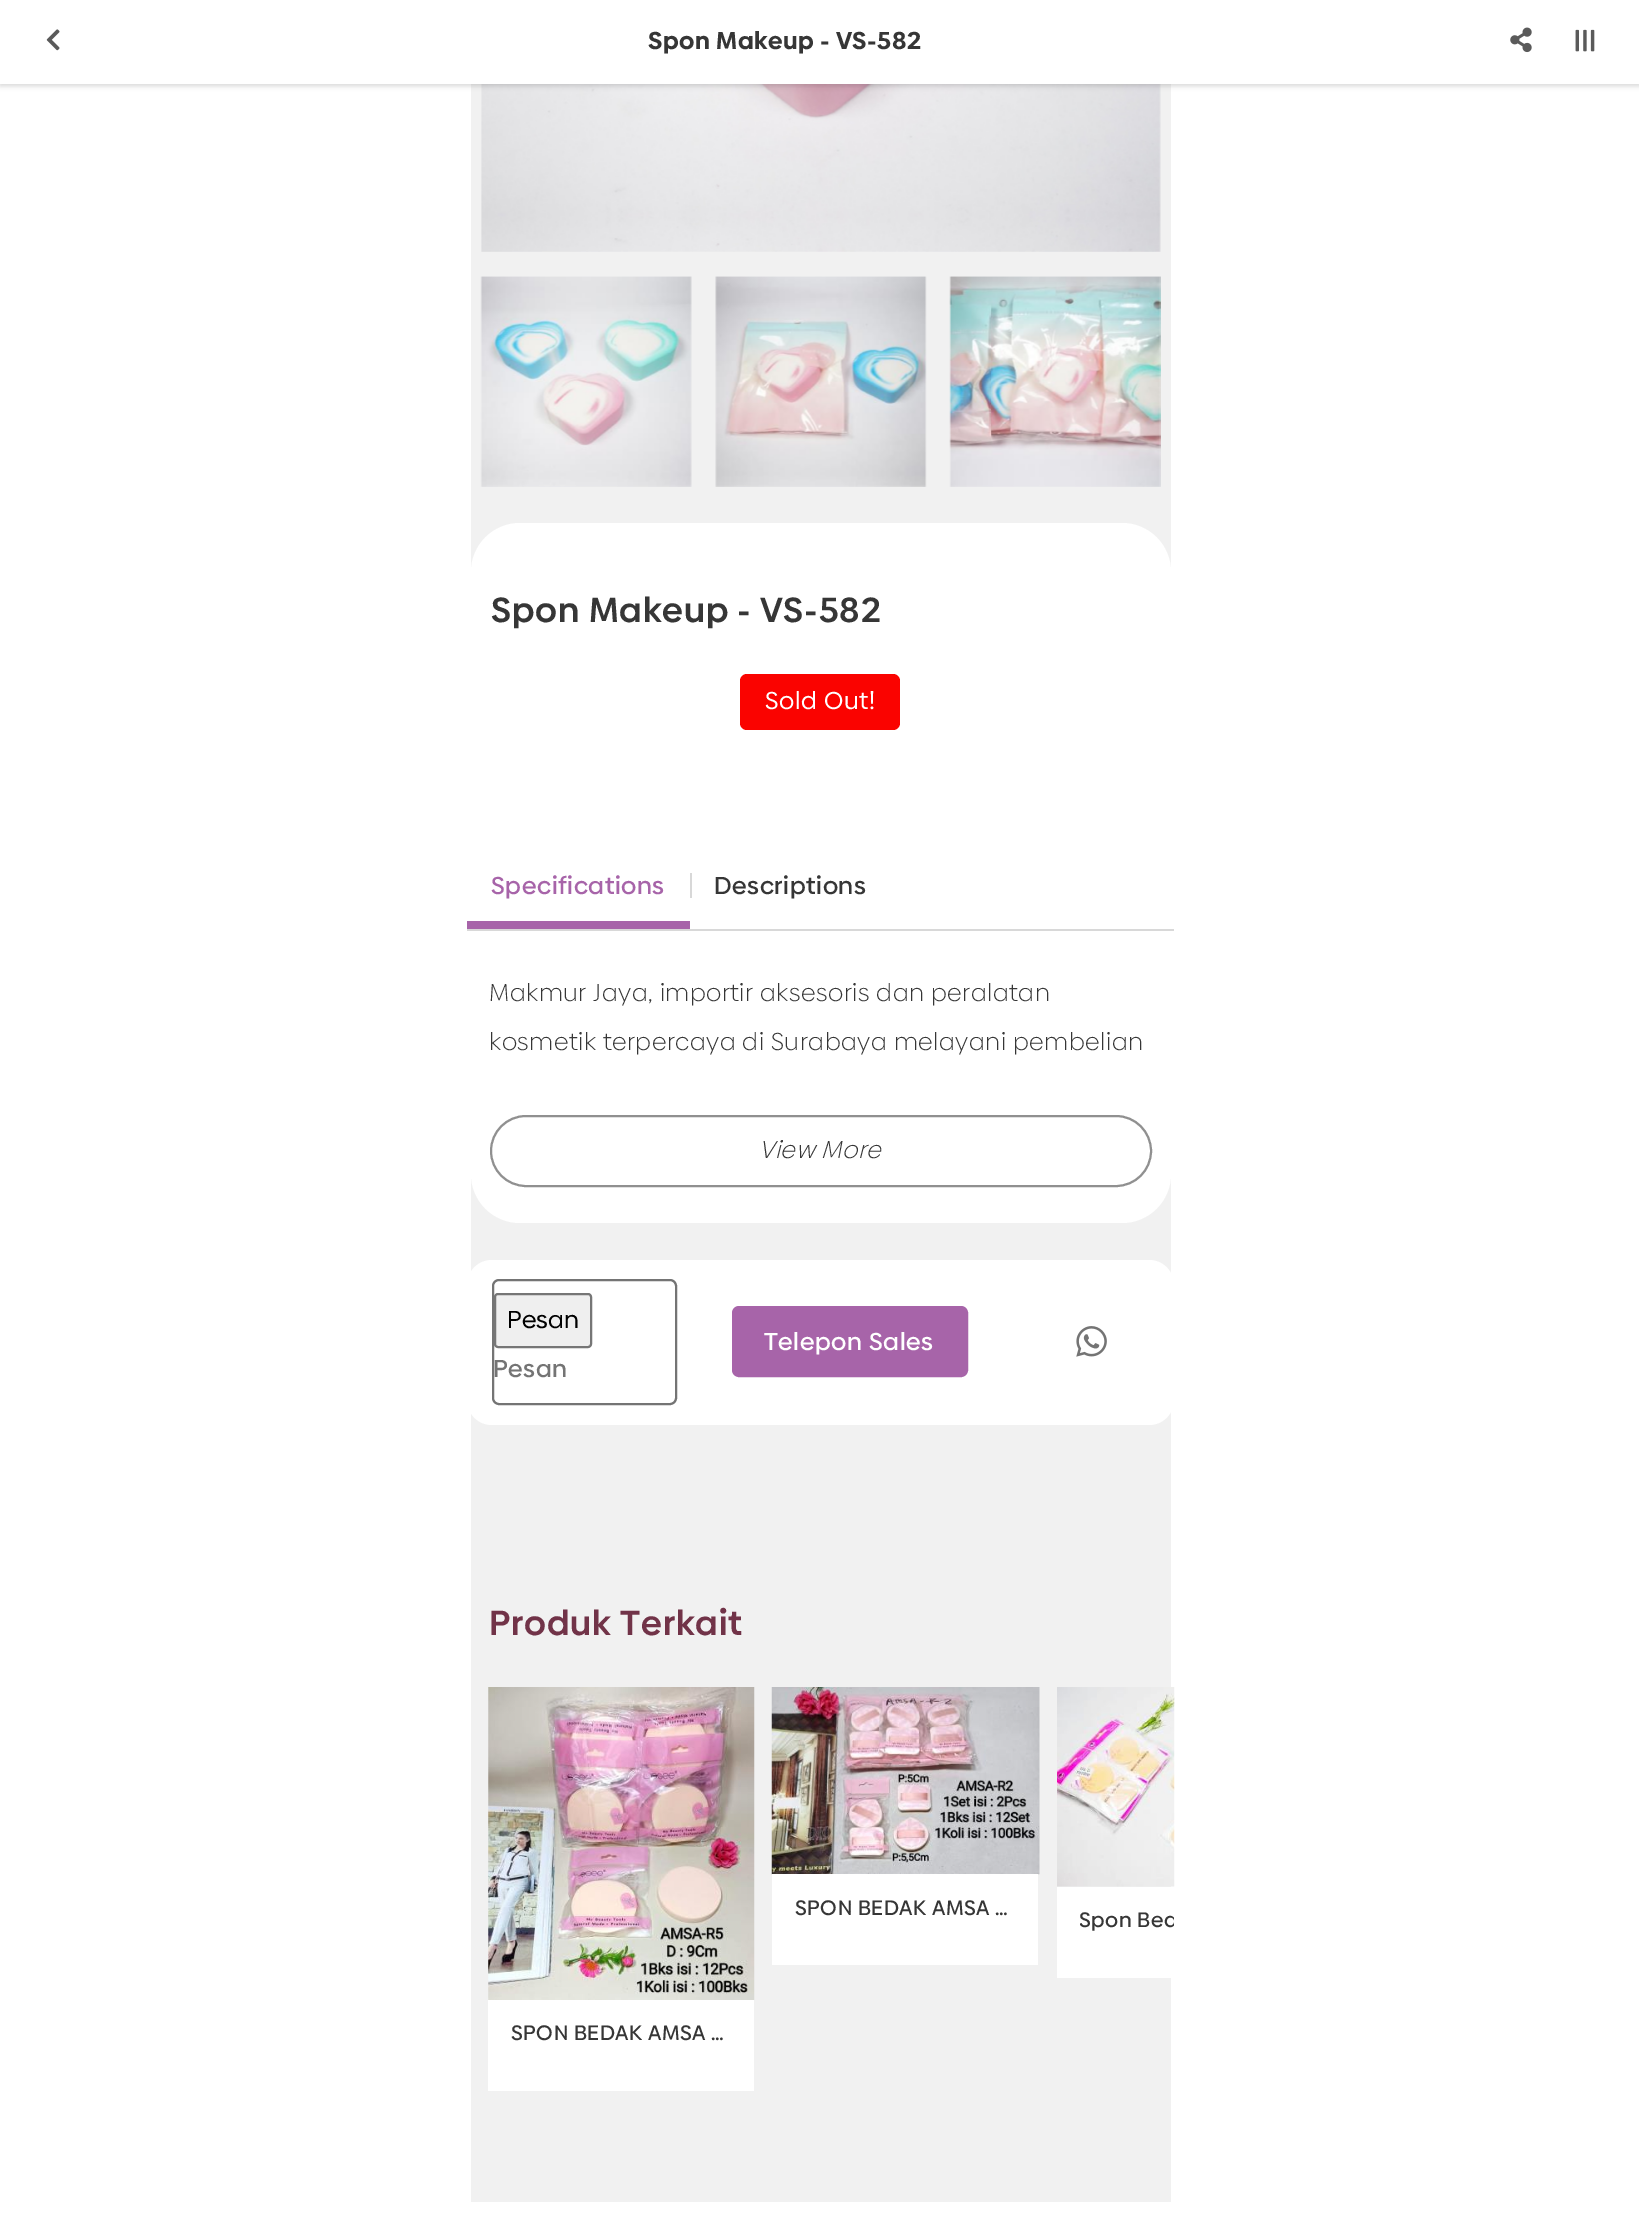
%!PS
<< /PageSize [1639 2228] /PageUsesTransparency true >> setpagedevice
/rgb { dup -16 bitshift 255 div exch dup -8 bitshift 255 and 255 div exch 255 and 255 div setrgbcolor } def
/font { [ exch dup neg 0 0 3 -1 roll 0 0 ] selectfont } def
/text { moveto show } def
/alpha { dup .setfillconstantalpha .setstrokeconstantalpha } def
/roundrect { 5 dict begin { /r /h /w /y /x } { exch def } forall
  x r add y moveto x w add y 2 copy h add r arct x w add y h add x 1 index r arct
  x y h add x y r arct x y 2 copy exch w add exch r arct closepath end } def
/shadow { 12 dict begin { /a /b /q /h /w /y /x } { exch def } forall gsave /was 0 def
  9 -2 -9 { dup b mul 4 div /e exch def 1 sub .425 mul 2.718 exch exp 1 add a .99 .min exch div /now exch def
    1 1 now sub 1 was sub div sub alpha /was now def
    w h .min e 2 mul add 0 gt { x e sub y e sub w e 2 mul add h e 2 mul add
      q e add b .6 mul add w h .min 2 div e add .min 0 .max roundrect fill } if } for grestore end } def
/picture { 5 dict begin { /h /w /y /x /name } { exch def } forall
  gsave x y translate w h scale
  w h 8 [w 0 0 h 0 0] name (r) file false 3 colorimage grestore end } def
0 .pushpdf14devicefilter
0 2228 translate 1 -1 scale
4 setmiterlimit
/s1 { /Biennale-Regular 24.5 font 16#000000 rgb } def
16#FFFFFF rgb
0 0 1639 2228 rectfill
16#F1F1F1 rgb
471 84 700 2118 rectfill
(pic4.raw) 481 84 680 168 picture
16#000000 rgb
0 2 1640 84 0 2.5 0.15 shadow
16#FFFFFF rgb
0 0 1639 84 rectfill
(pic1.raw) 46 29 14 22 picture
/Biennale-Bold 24.5 font
16#363636 rgb
648 49 moveto 0.6 0 (Spon Makeup - VS-582) ashow
(pic2.raw) 1510 27 22 26 picture
(pic3.raw) 1575 29 20 23 picture
(pic5.raw) 480 276 212 211 picture
(pic6.raw) 715 276 212 211 picture
(pic7.raw) 949 276 212 211 picture
16#FFFFFF rgb
471 523 700 700 49 roundrect fill
/Biennale-SemiBold 35 font
16#363636 rgb
491 622 moveto 0.9 0 (Spon Makeup - VS-582) ashow
16#FA0300 rgb
740 674 160 56 7 roundrect fill
/Biennale-Regular 24.5 font
16#FFFFFF rgb
765 709 moveto 0.6 0 (Sold Out!) ashow
16#D8D8D8 rgb
467 929 707 2 rectfill
16#A764A9 rgb
467 921 223 8 rectfill
/Biennale-Medium 24.5 font
491 894 moveto 0.6 0 (Specifications) ashow
16#D8D8D8 rgb
690 873 2 25 rectfill
16#363636 rgb
714 894 moveto 0.6 0 (Descriptions) ashow
/Biennale-Light 24.5 font
489 1001 moveto 0.53 0 (Makmur Jaya, importir aksesoris dan peralatan) ashow
489 1050 moveto 0.53 0 (kosmetik terpercaya di Surabaya melayani pembelian) ashow
16#909090 rgb
2 setlinewidth
491 1116 660 70 35 roundrect stroke
/Biennale-LightItalic 24.5 font
16#363636 rgb
759 1158 moveto 0.6 0 (View More) ashow
16#FFFFFF rgb
467 1260 707 165 25 roundrect fill
16#747474 rgb
493 1280 183 124 6 roundrect stroke
16#EFEFEF rgb
495 1294 96 53 3 roundrect gsave fill grestore
16#767676 rgb
stroke
s1
(Pesan) 507 1328 text
/Biennale-Medium 24.5 font
16#747474 rgb
493 1377 moveto 0.6 0 (Pesan) ashow
16#A764A9 rgb
733 1307 234 69 6 roundrect gsave fill grestore
stroke
16#FFFFFF rgb
764 1350 moveto 0.6 0 (Telepon Sales) ashow
(pic8.raw) 1076 1326 31 31 picture
/Biennale-SemiBold 35 font
16#713348 rgb
489 1635 moveto 0.9 0 (Produk Terkait) ashow
(pic9.raw) 771 1687 269 188 picture
16#FFFFFF rgb
772 1874 266 91 rectfill
/Biennale-Medium 21 font
16#363636 rgb
795 1915 moveto 0.53 0 (SPON BEDAK AMSA …) ashow
(pic10.raw) 1057 1687 118 200 picture
16#FFFFFF rgb
1057 1887 114 91 rectfill
gsave
1080 1899 94 42 rectclip
16#363636 rgb
1079 1927 moveto 0.53 0 (Spon Bed) ashow
grestore
(pic11.raw) 488 1687 267 314 picture
488 2000 266 91 rectfill
16#363636 rgb
511 2040 moveto 0.53 0 (SPON BEDAK AMSA …) ashow
.poppdf14devicefilter showpage
